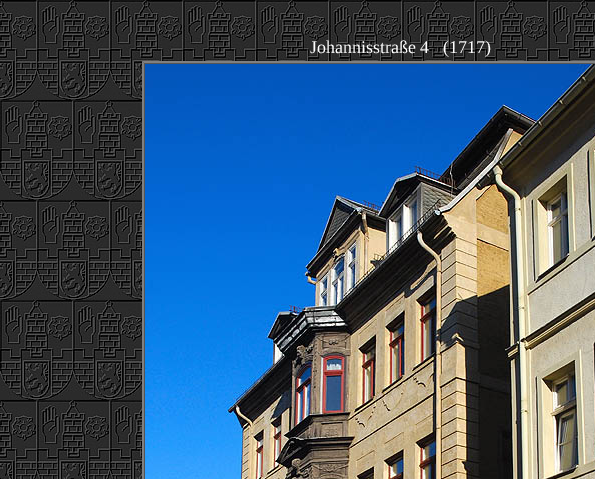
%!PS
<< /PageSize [595 479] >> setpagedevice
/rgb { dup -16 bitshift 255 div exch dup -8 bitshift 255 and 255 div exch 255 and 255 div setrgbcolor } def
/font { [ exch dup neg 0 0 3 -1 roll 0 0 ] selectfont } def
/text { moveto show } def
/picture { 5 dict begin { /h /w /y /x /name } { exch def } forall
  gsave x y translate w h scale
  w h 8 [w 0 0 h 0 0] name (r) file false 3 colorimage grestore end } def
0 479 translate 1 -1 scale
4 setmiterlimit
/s1 { /LiberationSerif-Regular 18 font 16#FFFFFF rgb } def
16#FFFFFF rgb
0 0 595 479 rectfill
(pic1.raw) 0 0 595 479 picture
s1
(Johannisstraße 4   \(1717\)) 310 53 text
16#808080 rgb
142 61 moveto 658 61 lineto 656 63 lineto 144 63 lineto closepath fill
142 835 moveto 142 61 lineto 144 63 lineto 144 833 lineto closepath fill
16#555555 rgb
144 63 451 1 rectfill
144 63 1 416 rectfill
(pic2.raw) 145 64 450 415 picture
showpage
